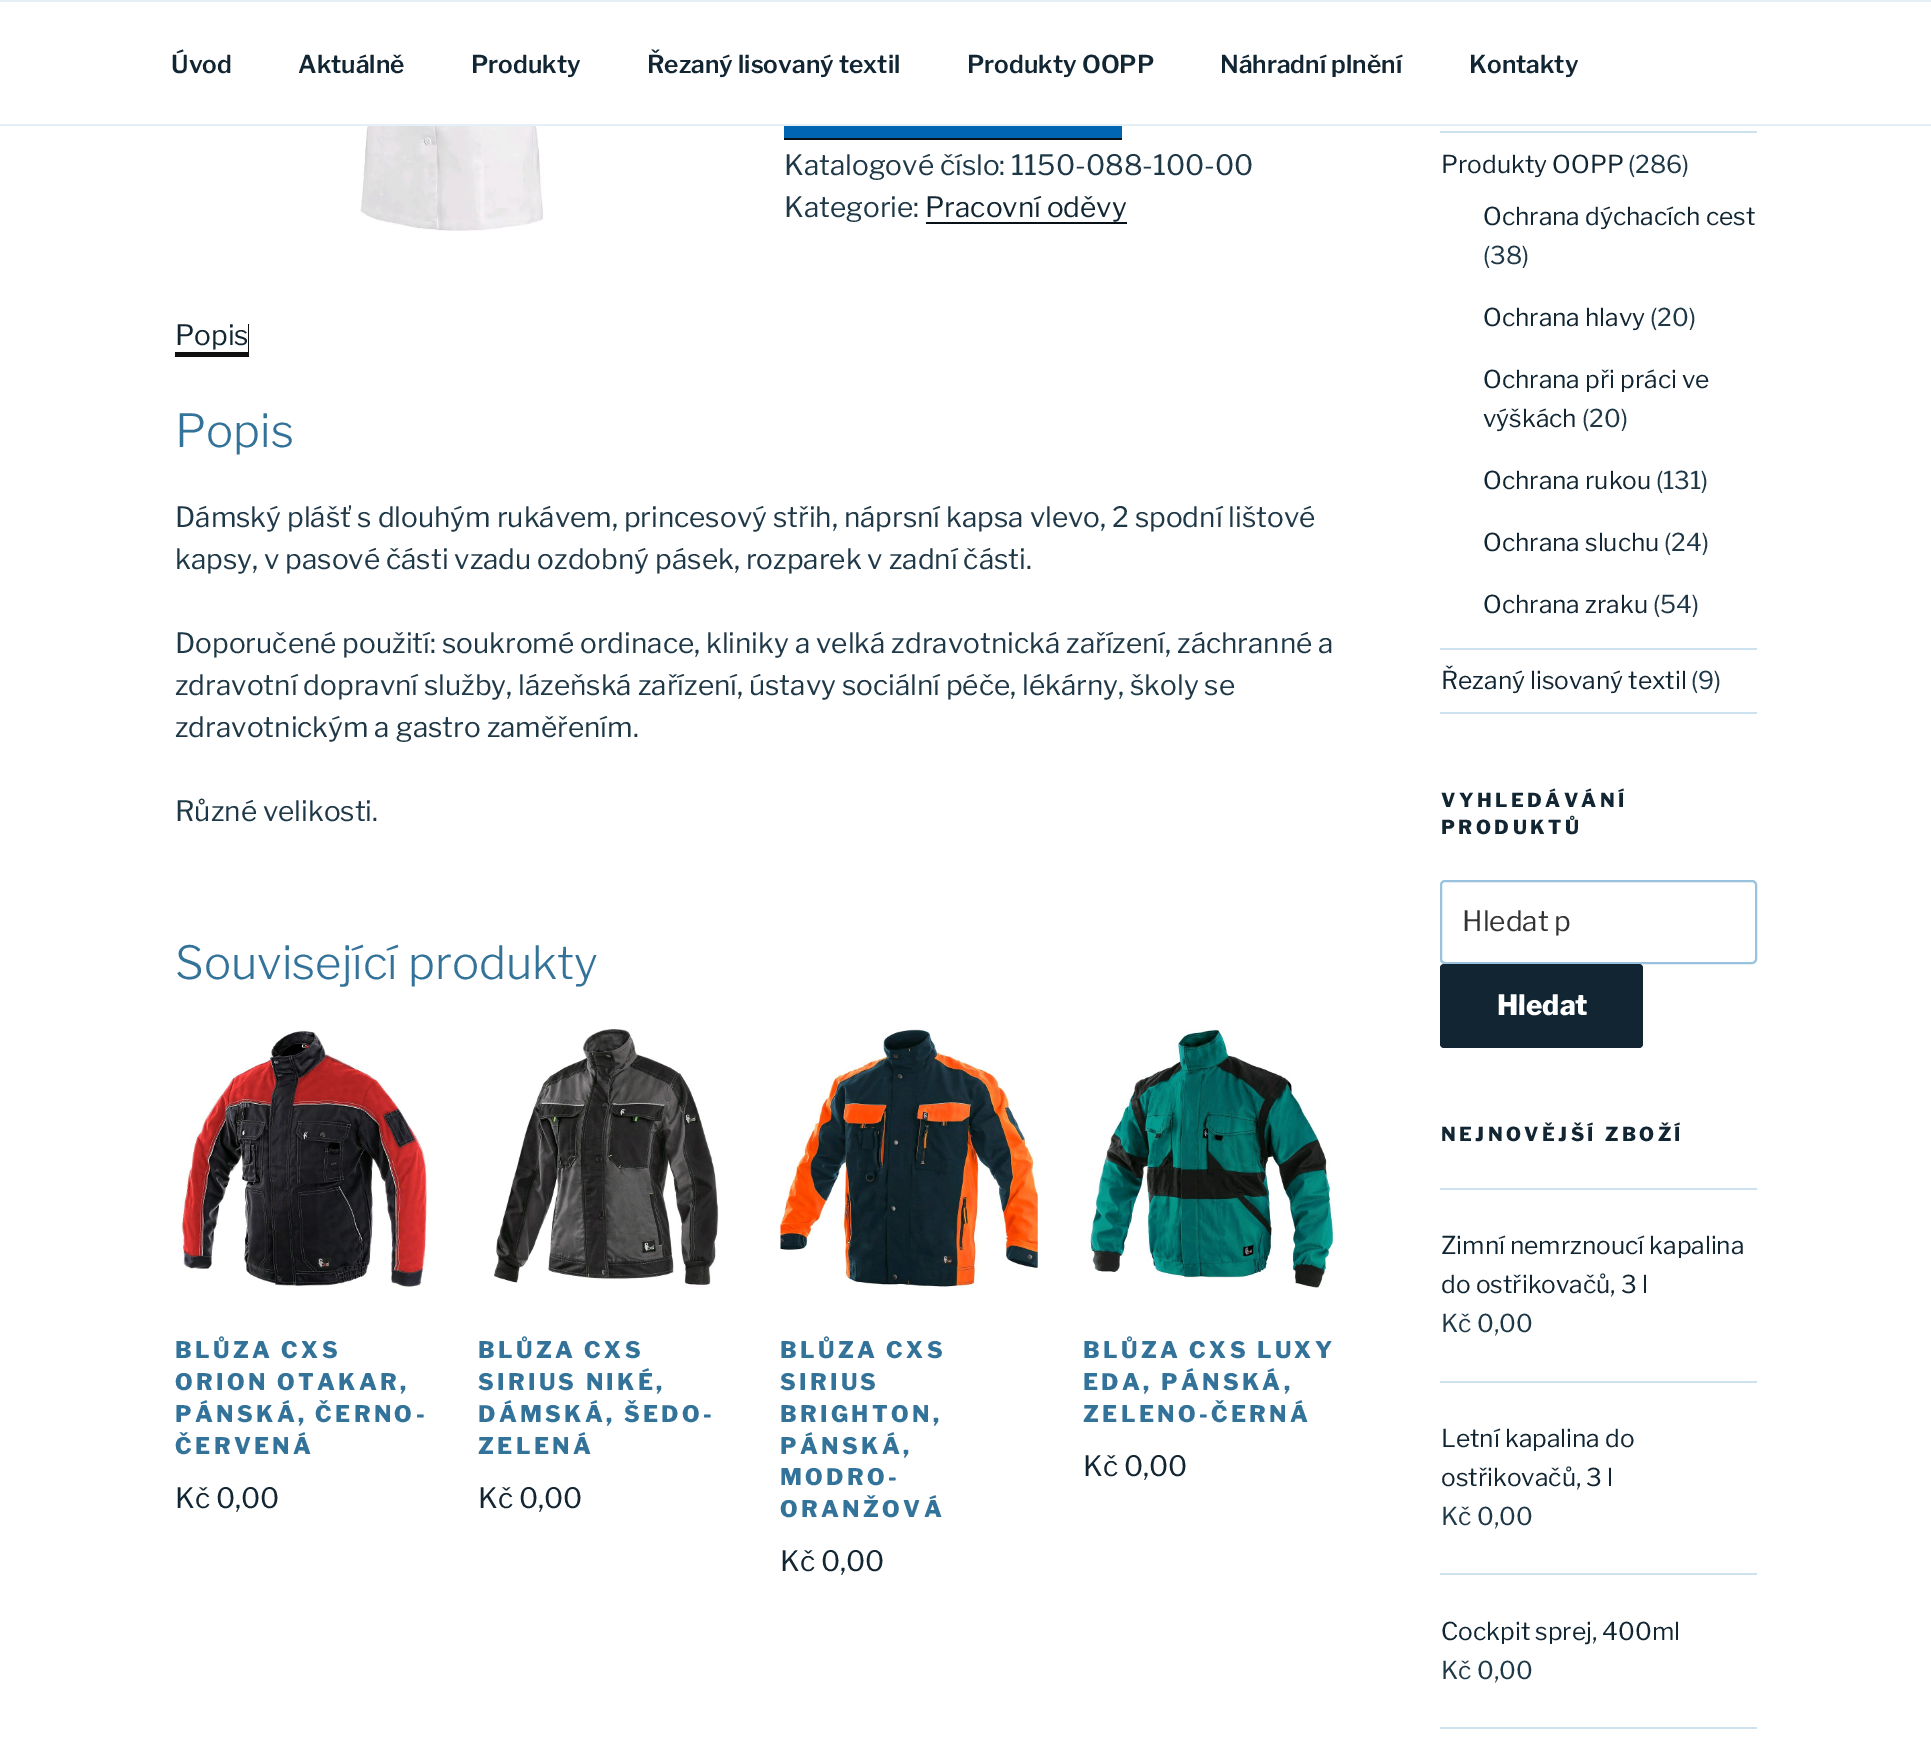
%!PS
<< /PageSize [1931 1753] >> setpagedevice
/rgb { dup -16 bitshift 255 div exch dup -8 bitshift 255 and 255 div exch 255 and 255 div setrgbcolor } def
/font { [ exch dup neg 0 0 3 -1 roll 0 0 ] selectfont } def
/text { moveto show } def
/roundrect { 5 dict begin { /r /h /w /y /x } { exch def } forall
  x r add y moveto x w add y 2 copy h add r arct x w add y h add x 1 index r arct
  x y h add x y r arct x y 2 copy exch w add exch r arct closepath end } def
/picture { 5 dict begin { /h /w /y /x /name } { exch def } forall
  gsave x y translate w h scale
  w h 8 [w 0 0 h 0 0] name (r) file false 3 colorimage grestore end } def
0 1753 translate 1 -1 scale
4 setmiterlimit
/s1 { /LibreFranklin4-Thin 24.5 font 16#112532 rgb } def
/s2 { /LibreFranklin-Thin 28 font 16#1F3847 rgb } def
/s3 { /LibreFranklin-Thin 28 font 16#112532 rgb } def
/s4 { /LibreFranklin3-Thin 45.5 font 16#337299 rgb } def
/s5 { /LibreFranklin-Thin 24.5 font 16#112532 rgb } def
/s6 { /LibreFranklin-Thin 24.5 font 16#1F3847 rgb } def
/s7 { /LibreFranklin-Thin 28 font 16#333333 rgb } def
/s8 { /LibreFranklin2-Thin 28 font 16#FFFFFF rgb } def
16#FFFFFF rgb
0 0 1931 1753 rectfill
16#E4EFF6 rgb
0 0 1931 2 rectfill
0 124 1931 2 rectfill
s1
(Úvod) 171 73 text
(Aktuálně) 298 73 text
(Produkty) 471 73 text
(Řezaný lisovaný textil) 647 73 text
(Produkty OOPP) 967 73 text
(Náhradní plnění) 1220 73 text
(Kontakty) 1469 73 text
(pic1.raw) 298 126 315 105 picture
16#0066B4 rgb
784 126 338 12 rectfill
16#081117 rgb
784 138 338 2 rectfill
s2
(Katalogové číslo: 1150-088-100-00) 784 175 text
(Kategorie:) 784 217 text
s3
(Pracovní oděvy) 925 217 text
16#081117 rgb
926 222 201 2 rectfill
16#0F0F0F rgb
175 352 moveto 175 357 lineto 249 357 lineto 249 324 lineto 248 324 lineto 248 352 lineto closepath fill
s3
(Popis) 175 345 text
s4
(Popis) 175 447 text
s2
(Dámský plášť s dlouhým rukávem, princesový střih, náprsní kapsa vlevo, 2 spodní lištové) 175 527 text
(kapsy, v pasové části vzadu ozdobný pásek, rozparek v zadní části.) 175 569 text
(Doporučené použití: soukromé ordinace, kliniky a velká zdravotnická zařízení, záchranné a) 175 653 text
(zdravotní dopravní služby, lázeňská zařízení, ústavy sociální péče, lékárny, školy se) 175 695 text
(zdravotnickým a gastro zaměřením.) 175 737 text
(Různé velikosti.) 175 821 text
s4
(Související produkty) 175 979 text
(pic2.raw) 180 1029 249 259 picture
/LibreFranklin2-Thin 22.75 font
175 1358 moveto 3.4 0 (BLŮZA CXS) ashow
175 1390 moveto 3.4 0 (ORION OTAKAR,) ashow
175 1422 moveto 3.4 0 (PÁNSKÁ, ČERNO-) ashow
175 1454 moveto 3.4 0 (ČERVENÁ) ashow
s3
(Kč 0,00) 175 1508 text
(pic3.raw) 494 1029 225 259 picture
/LibreFranklin2-Thin 22.75 font
16#337299 rgb
478 1358 moveto 3.4 0 (BLŮZA CXS) ashow
478 1390 moveto 3.4 0 (SIRIUS NIKÉ,) ashow
478 1422 moveto 3.4 0 (DÁMSKÁ, ŠEDO-) ashow
478 1454 moveto 3.4 0 (ZELENÁ) ashow
s3
(Kč 0,00) 478 1508 text
(pic4.raw) 780 1029 258 259 picture
/LibreFranklin2-Thin 22.75 font
16#337299 rgb
780 1358 moveto 3.4 0 (BLŮZA CXS) ashow
780 1390 moveto 3.4 0 (SIRIUS) ashow
780 1422 moveto 3.4 0 (BRIGHTON,) ashow
780 1454 moveto 3.4 0 (PÁNSKÁ,) ashow
780 1485 moveto 3.4 0 (MODRO-) ashow
780 1517 moveto 3.4 0 (ORANŽOVÁ) ashow
s3
(Kč 0,00) 780 1571 text
(pic5.raw) 1088 1029 247 259 picture
/LibreFranklin2-Thin 22.75 font
16#337299 rgb
1083 1358 moveto 3.4 0 (BLŮZA CXS LUXY) ashow
1083 1390 moveto 3.4 0 (EDA, PÁNSKÁ,) ashow
1083 1422 moveto 3.4 0 (ZELENO-ČERNÁ) ashow
s3
(Kč 0,00) 1083 1476 text
16#CDE2EE rgb
1440 131 317 2 rectfill
1440 648 317 2 rectfill
s5
(Produkty OOPP) 1441 173 text
s6
(\(286\)) 1628 173 text
s5
(Ochrana dýchacích cest) 1483 225 text
s6
(\(38\)) 1483 264 text
s5
(Ochrana hlavy) 1483 326 text
s6
(\(20\)) 1650 326 text
s5
(Ochrana při práci ve) 1483 388 text
(výškách) 1483 427 text
s6
(\(20\)) 1582 427 text
s5
(Ochrana rukou) 1483 489 text
s6
(\(131\)) 1656 489 text
s5
(Ochrana sluchu) 1483 551 text
s6
(\(24\)) 1664 551 text
s5
(Ochrana zraku) 1483 613 text
s6
(\(54\)) 1653 613 text
16#CDE2EE rgb
1440 712 317 2 rectfill
s5
(Řezaný lisovaný textil) 1441 689 text
s6
(\(9\)) 1691 689 text
/LibreFranklin2-Thin 19.25 font
16#112532 rgb
1441 807 moveto 3.5 0 (VYHLEDÁVÁNÍ) ashow
1441 834 moveto 3.5 0 (PRODUKTŮ) ashow
16#98C2DD rgb
2 setlinewidth
1441 881 315 82 4 roundrect stroke
s7
(Hledat p) 1462 931 text
16#112532 rgb
1440 964 203 84 4 roundrect fill
s8
(Hledat) 1497 1015 text
/LibreFranklin2-Thin 19.25 font
16#112532 rgb
1441 1141 moveto 3.5 0 (NEJNOVĚJŠÍ ZBOŽÍ) ashow
16#CDE2EE rgb
1440 1188 317 2 rectfill
1440 1381 317 2 rectfill
s5
(Zimní nemrznoucí kapalina) 1441 1254 text
(do ostřikovačů, 3 l) 1441 1293 text
s6
(Kč 0,00) 1441 1332 text
16#CDE2EE rgb
1440 1573 317 2 rectfill
s5
(Letní kapalina do) 1441 1447 text
(ostřikovačů, 3 l) 1441 1486 text
s6
(Kč 0,00) 1441 1525 text
16#CDE2EE rgb
1440 1727 317 2 rectfill
s5
(Cockpit sprej, 400ml) 1441 1640 text
s6
(Kč 0,00) 1441 1679 text
showpage
